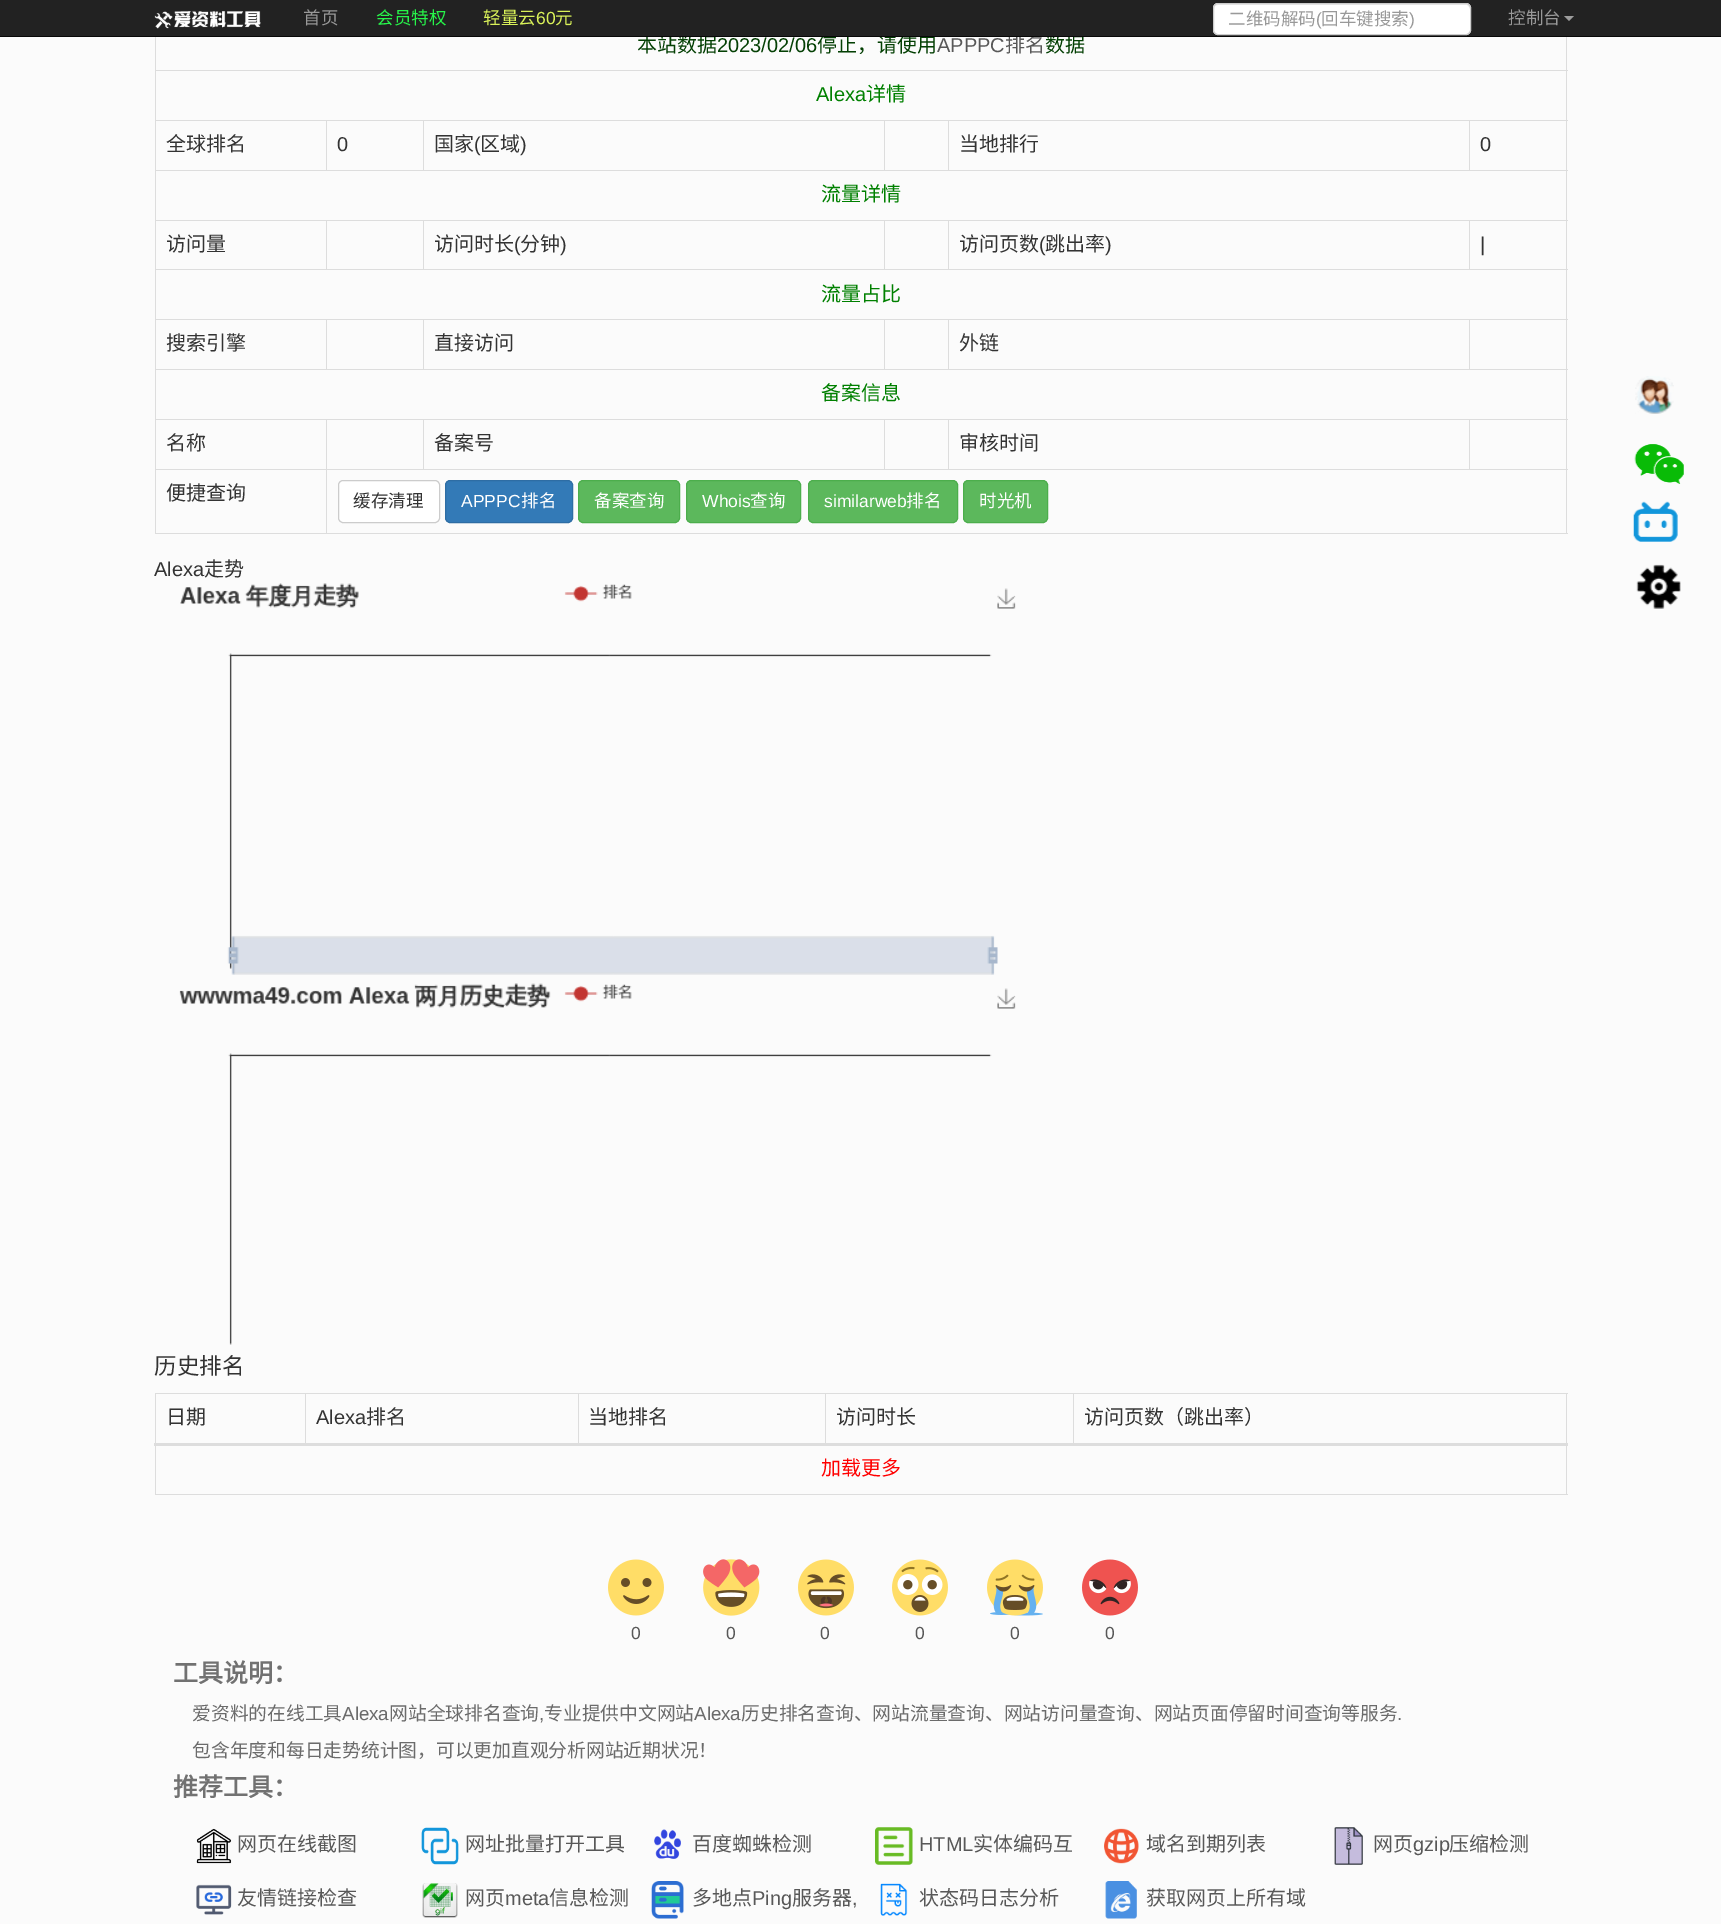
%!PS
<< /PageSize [1721 1924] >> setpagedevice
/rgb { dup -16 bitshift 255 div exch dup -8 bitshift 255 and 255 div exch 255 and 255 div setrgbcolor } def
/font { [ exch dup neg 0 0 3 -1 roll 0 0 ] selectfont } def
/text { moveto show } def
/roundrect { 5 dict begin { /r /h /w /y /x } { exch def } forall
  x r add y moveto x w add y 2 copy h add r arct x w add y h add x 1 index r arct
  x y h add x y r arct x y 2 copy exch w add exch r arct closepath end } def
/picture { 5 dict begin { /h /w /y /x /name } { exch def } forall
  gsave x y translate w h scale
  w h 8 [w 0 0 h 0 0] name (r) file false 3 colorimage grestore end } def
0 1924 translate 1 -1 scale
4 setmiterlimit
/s1 { /NotoSansCJKSC-Regular 20 font 16#044004 rgb } def
/s2 { /NotoSansCJKSC-Regular 20 font 16#585858 rgb } def
/s3 { /NotoSansCJKSC-Regular 17.5 font 16#999999 rgb } def
/s4 { /NotoSansCJKSC-Regular 17.5 font 16#27F54A rgb } def
/s5 { /NotoSansCJKSC-Regular 17.5 font 16#D9F159 rgb } def
/s6 { /LiberationSans-Regular 17.5 font 16#D9F159 rgb } def
/s7 { /LiberationSans-Regular 17.5 font 16#999999 rgb } def
/s8 { /LiberationSans-Regular 20 font 16#044004 rgb } def
/s9 { /LiberationSans-Regular 20 font 16#585858 rgb } def
/s10 { /LiberationSans-Regular 20 font 16#008000 rgb } def
/s11 { /NotoSansCJKSC-Regular 20 font 16#008000 rgb } def
/s12 { /NotoSansCJKSC-Regular 20 font 16#333333 rgb } def
/s13 { /LiberationSans-Regular 20 font 16#333333 rgb } def
/s14 { /NotoSansCJKSC-Regular 17.5 font 16#333333 rgb } def
/s15 { /LiberationSans-Regular 17.5 font 16#FFFFFF rgb } def
/s16 { /NotoSansCJKSC-Regular 17.5 font 16#FFFFFF rgb } def
/s17 { /NotoSansCJKSC-Regular 22.5 font 16#333333 rgb } def
/s18 { /NotoSansCJKSC-Regular 20 font 16#FF0000 rgb } def
/s19 { /NotoSansCJKSC-Bold 25 font 16#717171 rgb } def
/s20 { /NotoSansCJKSC-Regular 18.75 font 16#6B6B6B rgb } def
/s21 { /LiberationSans-Regular 18.75 font 16#6B6B6B rgb } def
16#FBFBFB rgb
0 0 1721 1924 rectfill
s1
(本站数据) 637 52 text
(停止，请使用) 817 52 text
s2
(排名) 1005 52 text
s1
(数据) 1045 52 text
16#222222 rgb
0 0 1721 36 rectfill
16#080808 rgb
0 36 1721 1 rectfill
(pic1.raw) 154 11 107 18 picture
s3
(首页) 303 24 text
s4
(会员特权) 376 24 text
s5
(轻量云) 483 24 text
s6
(60) 536 24 text
s5
(元) 555 24 text
16#FFFFFF rgb
1213 3 258 32 5 roundrect fill
16#ECECEC rgb
1218 5 moveto 1467 5 lineto 1469 7 lineto 1470 9 lineto 1470 8 lineto 1470 6 1468 4 1466 4 curveto 1218 4 lineto 1216 4 1214 6 1214 8 curveto 1214 9 lineto 1214 7 1215 5 1218 5 curveto closepath fill
16#CCCCCC rgb
1213.5 3.5 257 31 4.5 roundrect stroke
s3
(二维码解码) 1228 25 text
s7
(\() 1316 25 text
s3
(回车键搜索) 1321 25 text
s7
(\)) 1409 25 text
s3
(控制台) 1508 24 text
16#9D9D9D rgb
1564 16 moveto 1574 16 lineto 1569 21 lineto closepath fill
s8
(2023/02/06) 717 52 text
s9
(APPPC) 937 52 text
16#DDDDDD rgb
155 70 1413 1 rectfill
1469 120 99 1 rectfill
155 170 1413 1 rectfill
1469 220 99 1 rectfill
155 269 1413 1 rectfill
1469 319 99 1 rectfill
155 369 1413 1 rectfill
1469 419 99 1 rectfill
326 469 1242 1 rectfill
1566 469 1 65 rectfill
1566 419 1 51 rectfill
1566 369 1 51 rectfill
1566 319 1 51 rectfill
1566 269 1 51 rectfill
1566 220 1 50 rectfill
1566 170 1 51 rectfill
1566 120 1 51 rectfill
1566 37 1 84 rectfill
1469 120 1 51 rectfill
948 120 522 1 rectfill
948 120 1 51 rectfill
884 120 65 1 rectfill
884 120 1 51 rectfill
423 120 462 1 rectfill
423 120 1 51 rectfill
326 120 98 1 rectfill
326 120 1 51 rectfill
155 120 173 1 rectfill
1469 220 1 50 rectfill
948 220 522 1 rectfill
948 220 1 50 rectfill
884 220 65 1 rectfill
884 220 1 50 rectfill
423 220 462 1 rectfill
423 220 1 50 rectfill
326 220 98 1 rectfill
326 220 1 50 rectfill
155 220 173 1 rectfill
1469 319 1 51 rectfill
948 319 522 1 rectfill
948 319 1 51 rectfill
884 319 65 1 rectfill
884 319 1 51 rectfill
423 319 462 1 rectfill
423 319 1 51 rectfill
326 319 98 1 rectfill
326 319 1 51 rectfill
155 319 173 1 rectfill
1469 419 1 51 rectfill
948 419 522 1 rectfill
948 419 1 51 rectfill
884 419 65 1 rectfill
884 419 1 51 rectfill
423 419 462 1 rectfill
423 419 1 51 rectfill
326 419 98 1 rectfill
326 533 1242 1 rectfill
326 469 1 65 rectfill
155 469 173 1 rectfill
326 419 1 51 rectfill
155 419 173 1 rectfill
155 533 173 1 rectfill
155 469 1 65 rectfill
155 419 1 51 rectfill
155 369 1 51 rectfill
155 319 1 51 rectfill
155 269 1 51 rectfill
155 220 1 50 rectfill
155 170 1 51 rectfill
155 120 1 51 rectfill
155 37 1 84 rectfill
s10
(Alexa) 816 101 text
s11
(详情) 866 101 text
s12
(全球排名) 166 151 text
s13
(0) 337 151 text
s12
(国家) 434 151 text
s13
(\() 474 151 text
s12
(区域) 480 151 text
s13
(\)) 520 151 text
s12
(当地排行) 959 151 text
s13
(0) 1480 151 text
s11
(流量详情) 821 201 text
s12
(访问量) 166 251 text
(访问时长) 434 251 text
s13
(\() 514 251 text
s12
(分钟) 520 251 text
s13
(\)) 560 251 text
s12
(访问页数) 959 251 text
s13
(\() 1039 251 text
s12
(跳出率) 1045 251 text
s13
(\)) 1105 251 text
(|) 1480 251 text
s11
(流量占比) 821 301 text
s12
(搜索引擎) 166 350 text
(直接访问) 434 350 text
(外链) 959 350 text
s11
(备案信息) 821 400 text
s12
(名称) 166 450 text
(备案号) 434 450 text
(审核时间) 959 450 text
(便捷查询) 166 500 text
16#FFFFFF rgb
338.5 480.5 101 42 4.5 roundrect gsave fill grestore
16#CCCCCC rgb
stroke
s14
(缓存清理) 353 507 text
16#337AB7 rgb
445.5 480.5 127 42 4.5 roundrect gsave fill grestore
16#2E6DA4 rgb
stroke
s15
(APPPC) 461 507 text
s16
(排名) 521 507 text
16#5CB85C rgb
578.5 480.5 101 42 4.5 roundrect gsave fill grestore
16#4CAE4C rgb
stroke
s16
(备案查询) 594 507 text
16#5CB85C rgb
686.5 480.5 114 42 4.5 roundrect gsave fill grestore
16#4CAE4C rgb
stroke
s15
(Whois) 702 507 text
s16
(查询) 750 507 text
16#5CB85C rgb
808.5 480.5 149 42 4.5 roundrect gsave fill grestore
16#4CAE4C rgb
stroke
s15
(similarweb) 824 507 text
s16
(排名) 906 507 text
16#5CB85C rgb
963.5 480.5 84 42 4.5 roundrect gsave fill grestore
16#4CAE4C rgb
stroke
s16
(时光机) 979 507 text
s13
(Alexa) 154 576 text
s12
(走势) 204 576 text
(pic2.raw) 180 583 836 392 picture
(pic3.raw) 179 983 837 362 picture
s17
(历史排名) 154 1374 text
16#DDDDDD rgb
1073 1393 495 1 rectfill
1073 1393 1 52 rectfill
825 1393 249 1 rectfill
825 1393 1 52 rectfill
578 1393 248 1 rectfill
578 1393 1 52 rectfill
305 1393 274 1 rectfill
305 1393 1 52 rectfill
155 1393 151 1 rectfill
1566 1444 1 51 rectfill
155 1494 1413 1 rectfill
155 1444 1 51 rectfill
155 1393 1 52 rectfill
s12
(日期) 166 1424 text
s13
(Alexa) 316 1424 text
s12
(排名) 366 1424 text
(当地排名) 588 1424 text
(访问时长) 836 1424 text
16#DDDDDD rgb
1566 1393 1 52 rectfill
s12
(访问页数（跳出率）) 1084 1424 text
16#DDDDDD rgb
154 1443 1414 3 rectfill
s18
(加载更多) 821 1475 text
(pic4.raw) 1635 376 39 38 picture
(pic5.raw) 1634 444 50 40 picture
(pic6.raw) 1633 501 45 41 picture
(pic7.raw) 1636 564 45 45 picture
(pic8.raw) 608 1559 56 57 picture
/LiberationSans-Regular 17.5 font
16#585858 rgb
631 1639 moveto 1 0 (0) ashow
(pic9.raw) 703 1559 57 57 picture
726 1639 moveto 1 0 (0) ashow
(pic10.raw) 798 1559 56 57 picture
820 1639 moveto 1 0 (0) ashow
(pic11.raw) 892 1559 56 57 picture
915 1639 moveto 1 0 (0) ashow
(pic12.raw) 987 1559 56 57 picture
1010 1639 moveto 1 0 (0) ashow
(pic13.raw) 1082 1559 56 57 picture
1105 1639 moveto 1 0 (0) ashow
s19
(工具说明：) 173 1682 text
s20
(爱资料的在线工具) 192 1720 text
s21
(Alexa) 342 1720 text
s20
(网站全球排名查询) 389 1720 text
s21
(,) 539 1720 text
s20
(专业提供中文网站) 544 1720 text
s21
(Alexa) 694 1720 text
s20
(历史排名查询、网站流量查询、网站访问量查询、网站页面停留时间查询等服务) 741 1720 text
s21
(.) 1397 1720 text
s20
(包含年度和每日走势统计图，可以更加直观分析网站近期状况！) 192 1757 text
s19
(推荐工具：) 173 1796 text
(pic14.raw) 196 1828 36 36 picture
s2
(网页在线截图) 237 1851 text
(pic15.raw) 421 1827 38 38 picture
(网址批量打开工具) 465 1851 text
(pic16.raw) 654 1829 27 30 picture
(百度蜘蛛检测) 692 1851 text
(pic17.raw) 875 1827 38 38 picture
s9
(HTML) 919 1851 text
s2
(实体编码互) 973 1851 text
(pic18.raw) 1104 1828 35 36 picture
(域名到期列表) 1146 1851 text
(pic19.raw) 1334 1827 29 38 picture
(网页) 1373 1851 text
s9
(gzip) 1413 1851 text
s2
(压缩检测) 1449 1851 text
(pic20.raw) 196 1884 36 31 picture
(友情链接检查) 237 1905 text
(pic21.raw) 422 1883 36 35 picture
(网页) 465 1905 text
s9
(meta) 505 1905 text
s2
(信息检测) 549 1905 text
(pic22.raw) 651 1881 33 38 picture
(多地点) 692 1905 text
s9
(Ping) 752 1905 text
s2
(服务器) 792 1905 text
s9
(,) 852 1905 text
(pic23.raw) 880 1883 28 33 picture
s2
(状态码日志分析) 919 1905 text
(pic24.raw) 1105 1881 32 38 picture
(获取网页上所有域) 1146 1905 text
showpage
